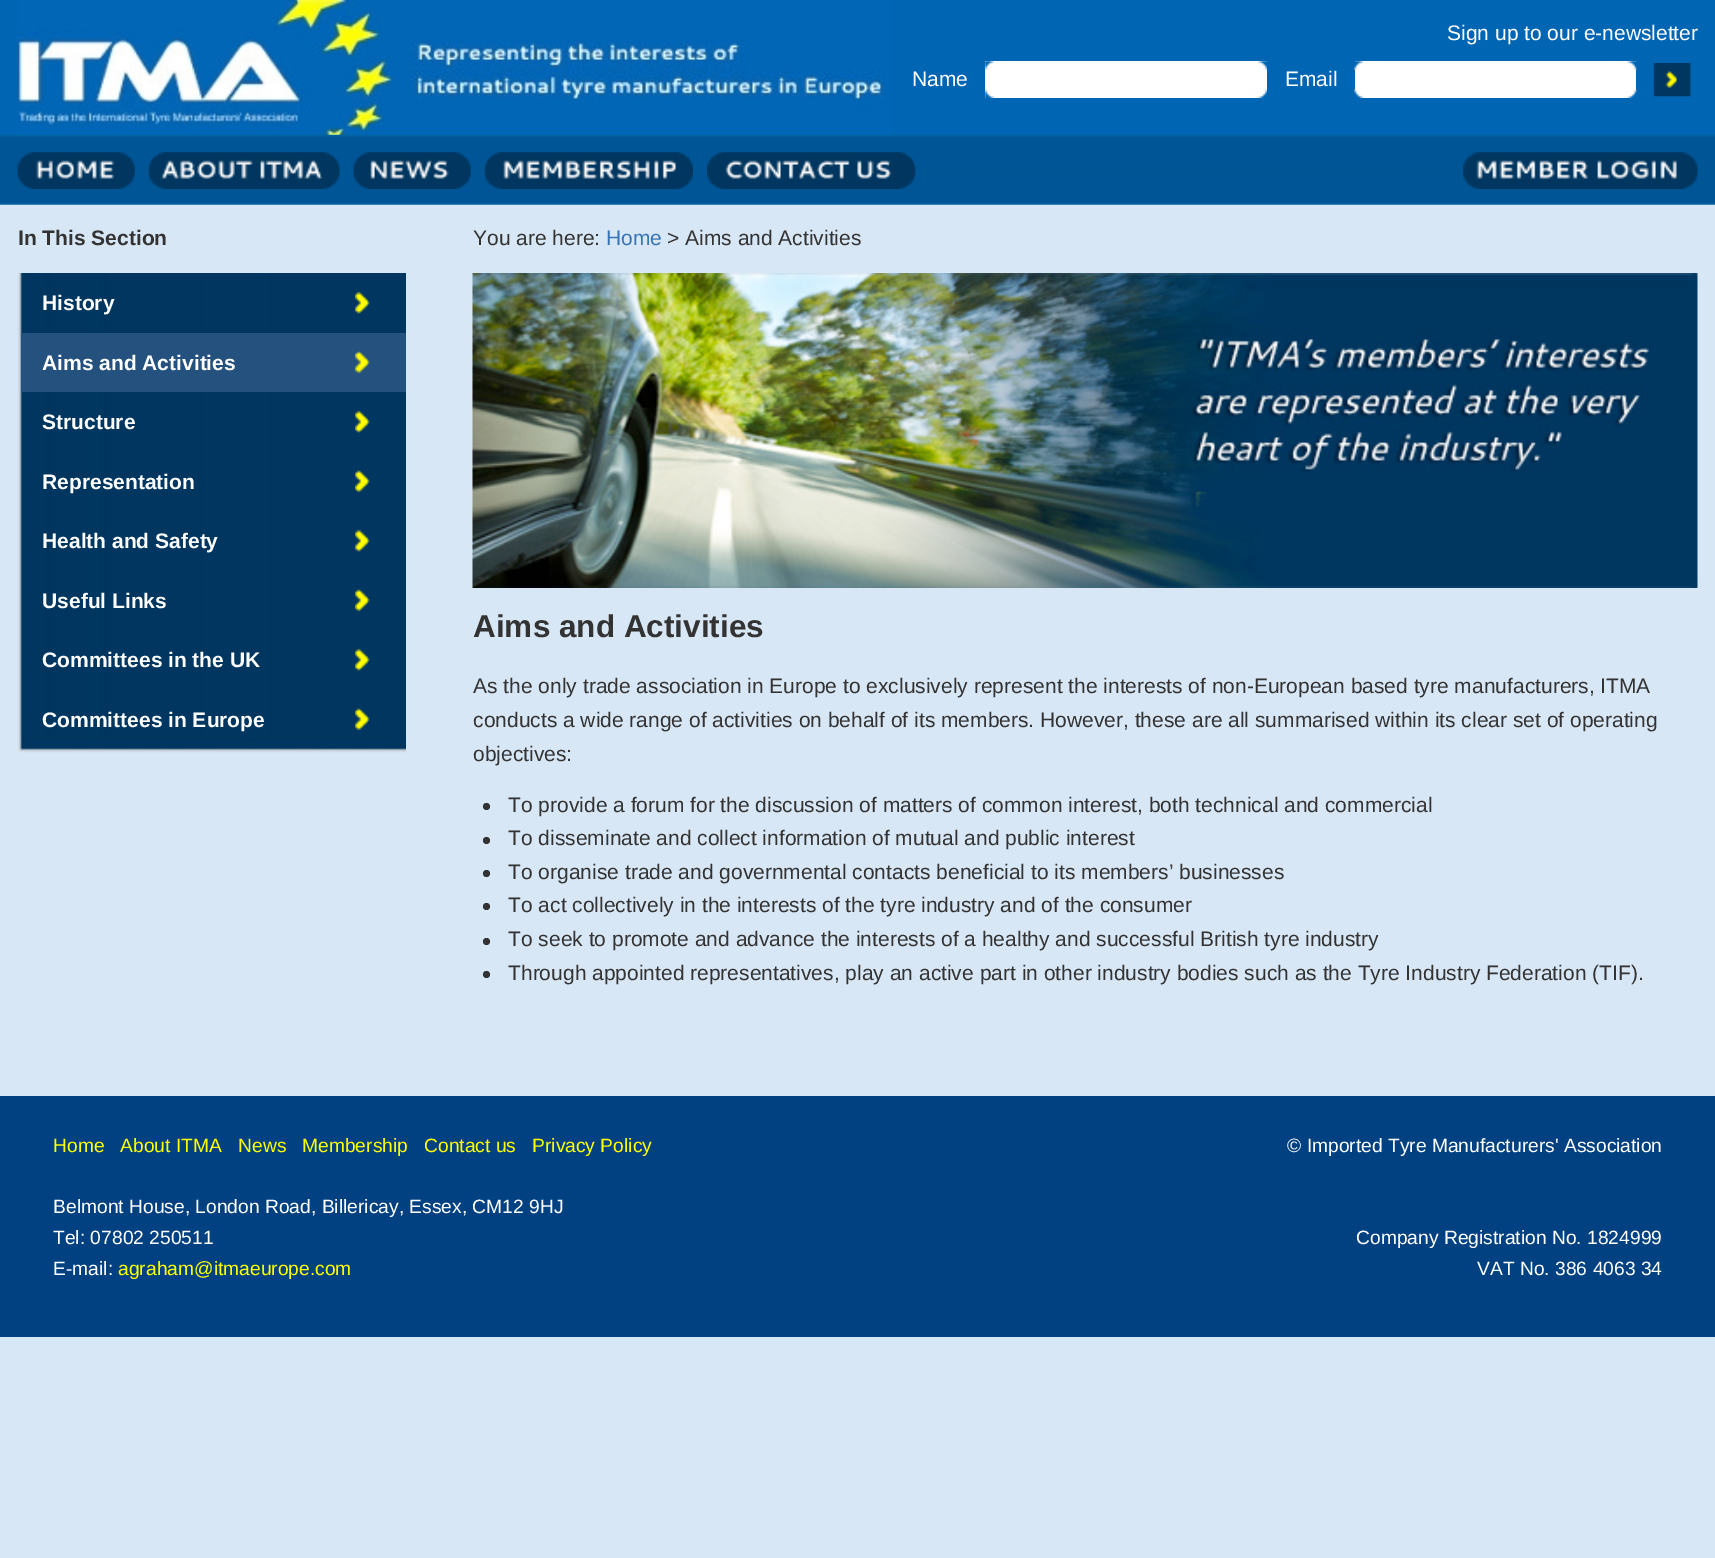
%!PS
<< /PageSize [1715 1558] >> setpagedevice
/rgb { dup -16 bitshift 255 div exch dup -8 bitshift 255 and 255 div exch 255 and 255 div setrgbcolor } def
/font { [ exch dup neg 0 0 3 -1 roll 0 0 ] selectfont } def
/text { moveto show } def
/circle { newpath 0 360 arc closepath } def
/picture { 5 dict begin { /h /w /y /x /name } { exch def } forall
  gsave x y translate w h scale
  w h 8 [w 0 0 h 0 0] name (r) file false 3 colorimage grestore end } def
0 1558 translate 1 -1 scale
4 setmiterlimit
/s1 { /LiberationSans-Regular 21 font 16#FFFFFF rgb } def
/s2 { /LiberationSans-Bold 21 font 16#333333 rgb } def
/s3 { /LiberationSans-Bold 21 font 16#FFFFFF rgb } def
/s4 { /LiberationSans-Regular 21 font 16#333333 rgb } def
/s5 { /LiberationSans-Regular 21 font 16#3575B6 rgb } def
/s6 { /LiberationSans-Bold 31.5 font 16#333333 rgb } def
/s7 { /LiberationSans-Regular 19.25 font 16#FFFF04 rgb } def
/s8 { /LiberationSans-Regular 19.25 font 16#FFFFFF rgb } def
16#D8E7F6 rgb
0 0 1715 1558 rectfill
(pic1.raw) 0 0 1715 205 picture
(pic2.raw) 17 0 875 135 picture
s1
(Sign up to our e-newsletter) 1447 40 text
(Name) 912 86 text
985 61 282 37 rectfill
(pic3.raw) 1258 61 9 9 picture
(pic4.raw) 985 61 9 9 picture
(pic5.raw) 985 89 9 9 picture
(pic6.raw) 1258 89 9 9 picture
(Email) 1285 86 text
1355 61 281 37 rectfill
(pic7.raw) 1627 61 10 9 picture
(pic8.raw) 1354 61 10 9 picture
(pic9.raw) 1354 89 10 9 picture
(pic10.raw) 1627 89 10 9 picture
(pic11.raw) 1653 63 38 34 picture
(pic12.raw) 17 152 118 37 picture
(pic13.raw) 148 152 192 37 picture
(pic14.raw) 353 152 118 37 picture
(pic15.raw) 484 152 209 37 picture
(pic16.raw) 707 152 209 37 picture
(pic17.raw) 1463 152 235 37 picture
s2
(In This Section) 18 245 text
(pic18.raw) 17 273 389 480 picture
(pic19.raw) 355 292 15 22 picture
s3
(History) 42 310 text
16#24517D rgb
21 333 385 59 rectfill
(pic20.raw) 355 351 15 22 picture
s3
(Aims and Activities) 42 370 text
(pic19.raw) 355 411 15 22 picture
(Structure) 42 429 text
(pic21.raw) 355 470 15 22 picture
(Representation) 42 489 text
(pic19.raw) 355 530 15 22 picture
(Health and Safety) 42 548 text
(pic21.raw) 355 589 15 22 picture
(Useful Links) 42 608 text
(pic19.raw) 355 649 15 22 picture
(Committees in the UK) 42 667 text
(pic21.raw) 355 708 15 22 picture
(Committees in Europe) 42 727 text
s4
(You are here:) 473 245 text
s5
(Home) 606 245 text
s4
(> Aims and Activities) 667 245 text
(pic22.raw) 472 273 1226 315 picture
s6
(Aims and Activities) 473 637 text
s4
(As the only trade association in Europe to exclusively represent the interests of non-European based tyre manufacturers, ITMA) 473 693 text
(conducts a wide range of activities on behalf of its members. However, these are all summarised within its clear set of operating) 473 727 text
(objectives:) 473 761 text
486.5 806.5 3.5 circle fill
(To provide a forum for the discussion of matters of common interest, both technical and commercial) 508 812 text
486.5 840.5 3.5 circle fill
(To disseminate and collect information of mutual and public interest) 508 845 text
486.5 873.5 3.5 circle fill
(To organise trade and governmental contacts beneficial to its members’ businesses) 508 879 text
486.5 906.5 3.5 circle fill
(To act collectively in the interests of the tyre industry and of the consumer) 508 912 text
486.5 941.5 3.5 circle fill
(To seek to promote and advance the interests of a healthy and successful British tyre industry) 508 946 text
486.5 974.5 3.5 circle fill
(Through appointed representatives, play an active part in other industry bodies such as the Tyre Industry Federation \(TIF\).) 508 980 text
16#014182 rgb
0 1096 1715 241 rectfill
s7
(Home) 53 1152 text
(About ITMA) 120 1152 text
(News) 238 1152 text
(Membership) 302 1152 text
(Contact us) 424 1152 text
(Privacy Policy) 532 1152 text
s8
(Belmont House, London Road, Billericay, Essex, CM12 9HJ) 53 1213 text
(Tel: 07802 250511) 53 1244 text
(E-mail:) 53 1275 text
s7
(agraham@itmaeurope.com) 118 1275 text
s8
(© Imported Tyre Manufacturers' Association) 1287 1152 text
(Company Registration No. 1824999) 1356 1244 text
(VAT No. 386 4063 34) 1477 1275 text
showpage
